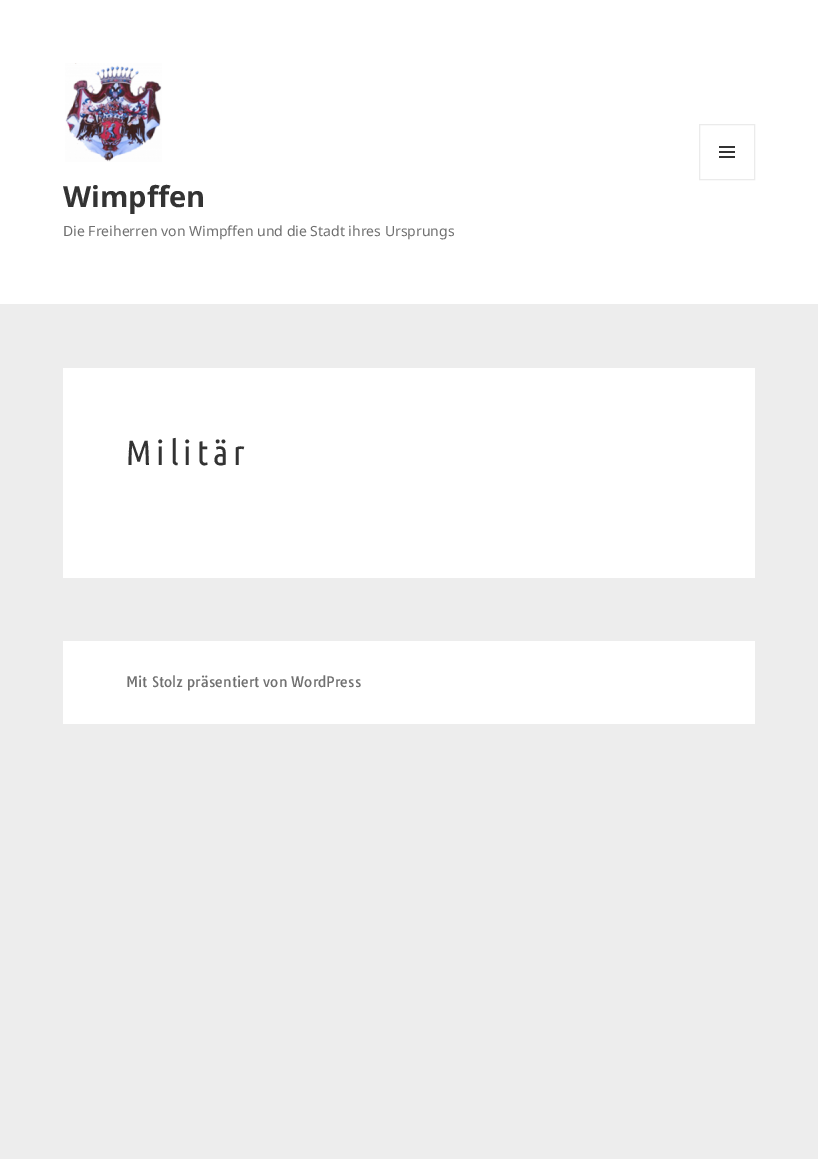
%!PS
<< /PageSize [818 1159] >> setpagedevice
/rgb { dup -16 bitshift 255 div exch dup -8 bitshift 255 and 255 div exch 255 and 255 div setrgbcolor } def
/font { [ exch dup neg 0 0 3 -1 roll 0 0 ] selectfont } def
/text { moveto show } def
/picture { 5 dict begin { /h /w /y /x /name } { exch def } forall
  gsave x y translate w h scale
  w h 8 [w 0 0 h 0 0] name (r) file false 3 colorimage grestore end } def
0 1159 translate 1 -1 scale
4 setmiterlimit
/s1 { /NotoSans-Bold 29 font 16#333333 rgb } def
/s2 { /NotoSans-Regular 14 font 16#707070 rgb } def
/s3 { /Tauri-Regular 14 font 16#707070 rgb } def
16#EDEDED rgb
0 0 818 1159 rectfill
16#FFFFFF rgb
0 0 818 304 rectfill
(pic1.raw) 65 63 97 99 picture
16#EBEBEB rgb
699.5 124.5 55 55 rectstroke
(pic2.raw) 719 146 16 12 picture
s1
(Wimpffen) 63 207 text
s2
(Die Freiherren von Wimpffen und die Stadt ihres Ursprungs) 63 236 text
16#FFFFFF rgb
63 368 692 210 rectfill
/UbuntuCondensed-Regular 35 font
16#333333 rgb
126 465 moveto 5 0 (Militär) ashow
16#FFFFFF rgb
63 641 692 83 rectfill
s3
(Mit Stolz präsentiert von WordPress) 126 687 text
showpage
